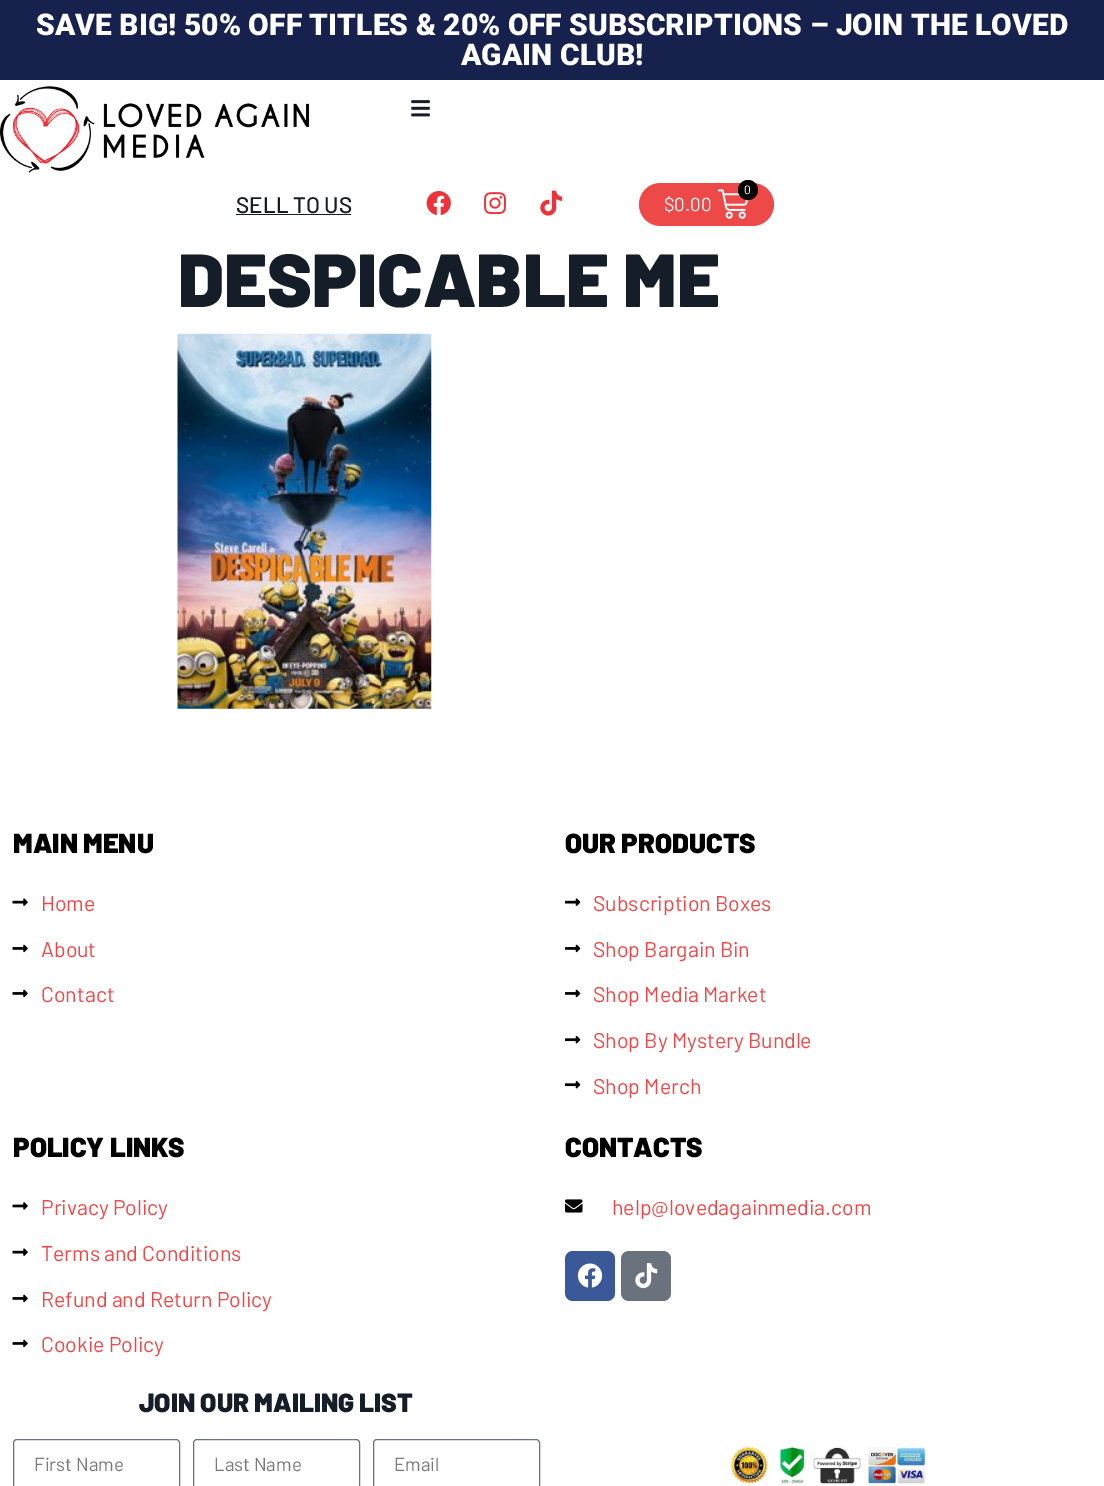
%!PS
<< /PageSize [1104 1486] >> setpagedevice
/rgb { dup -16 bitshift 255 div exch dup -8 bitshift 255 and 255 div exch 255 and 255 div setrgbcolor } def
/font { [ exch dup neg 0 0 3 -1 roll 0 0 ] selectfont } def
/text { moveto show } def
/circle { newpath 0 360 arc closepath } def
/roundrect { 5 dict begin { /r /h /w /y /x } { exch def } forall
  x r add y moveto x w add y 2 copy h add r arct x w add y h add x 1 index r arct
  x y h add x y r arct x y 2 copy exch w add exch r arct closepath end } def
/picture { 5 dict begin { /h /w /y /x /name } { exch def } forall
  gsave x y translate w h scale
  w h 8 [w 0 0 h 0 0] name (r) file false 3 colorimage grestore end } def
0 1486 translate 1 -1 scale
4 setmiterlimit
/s1 { /Roboto-Black 30 font 16#FFFFFF rgb } def
/s2 { /Barlow-Medium 22.5 font 16#151D28 rgb } def
/s3 { /Barlow-Regular 12 font 16#FFFFFF rgb } def
/s4 { /Barlow-Regular 18.75 font 16#FFFFFF rgb } def
/s5 { /Barlow-Black 75 font 16#151D28 rgb } def
/s6 { /Barlow-Black 27.5 font 16#000000 rgb } def
/s7 { /Barlow-Regular 21.25 font 16#ED4949 rgb } def
/s8 { /Barlow-Black 26.25 font 16#151D28 rgb } def
/s9 { /Barlow-Regular 18.75 font 16#797A7C rgb } def
16#FFFFFF rgb
0 0 1104 1486 rectfill
16#16214D rgb
0 0 1104 80 rectfill
s1
(SAVE BIG! 50% OFF TITLES & 20% OFF SUBSCRIPTIONS – JOIN THE LOVED) 36 35 text
(AGAIN CLUB!) 461 65 text
(pic1.raw) 0 86 310 87 picture
(pic2.raw) 411 100 19 17 picture
s2
(SELL TO US) 236 213 text
236 214 115 1 rectfill
(pic3.raw) 426 191 25 24 picture
(pic4.raw) 484 192 22 23 picture
(pic5.raw) 540 190 23 26 picture
16#ED4949 rgb
639 183 135 43 21.5 roundrect fill
(pic6.raw) 717 189 31 30 picture
16#000000 rgb
748 190 10 circle fill
s3
(0) 744 194 text
s4
($0.00) 664 211 text
s5
(DESPICABLE ME) 178 307 text
(pic7.raw) 177 333 255 376 picture
s6
(MAIN MENU) 13 853 text
(pic8.raw) 12 898 16 8 picture
s7
(Home) 41 911 text
(pic9.raw) 12 944 16 9 picture
(About) 41 957 text
(pic9.raw) 12 989 16 9 picture
(Contact) 41 1002 text
s6
(OUR PRODUCTS) 565 853 text
(pic10.raw) 565 898 16 8 picture
s7
(Subscription Boxes) 593 911 text
(pic11.raw) 565 944 16 9 picture
(Shop Bargain Bin) 593 957 text
(pic11.raw) 565 989 16 9 picture
(Shop Media Market) 593 1002 text
(pic12.raw) 565 1036 16 8 picture
(Shop By Mystery Bundle) 593 1048 text
(pic12.raw) 565 1081 16 8 picture
(Shop Merch) 593 1094 text
s6
(POLICY LINKS) 13 1157 text
(pic13.raw) 12 1202 16 8 picture
s7
(Privacy Policy) 41 1215 text
(pic8.raw) 12 1248 16 8 picture
(Terms and Conditions) 41 1261 text
(pic9.raw) 12 1294 16 9 picture
(Refund and Return Policy) 41 1307 text
(pic9.raw) 12 1339 16 9 picture
(Cookie Policy) 41 1352 text
s6
(CONTACTS) 565 1157 text
(pic14.raw) 565 1199 18 14 picture
s7
(help@lovedagainmedia.com) 612 1215 text
16#3B5998 rgb
565 1251 50 50 8 roundrect fill
(pic15.raw) 577 1263 26 25 picture
16#69727D rgb
621 1251 50 50 8 roundrect fill
(pic16.raw) 635 1263 23 26 picture
s8
(JOIN OUR MAILING LIST) 139 1412 text
16#69727D rgb
13.5 1439.5 166 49 3.5 roundrect stroke
s9
(First Name) 34 1471 text
16#69727D rgb
193.5 1439.5 166 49 3.5 roundrect stroke
s9
(Last Name) 214 1471 text
16#69727D rgb
373.5 1439.5 166 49 3.5 roundrect stroke
s9
(Email) 394 1471 text
(pic17.raw) 729 1445 198 40 picture
showpage
